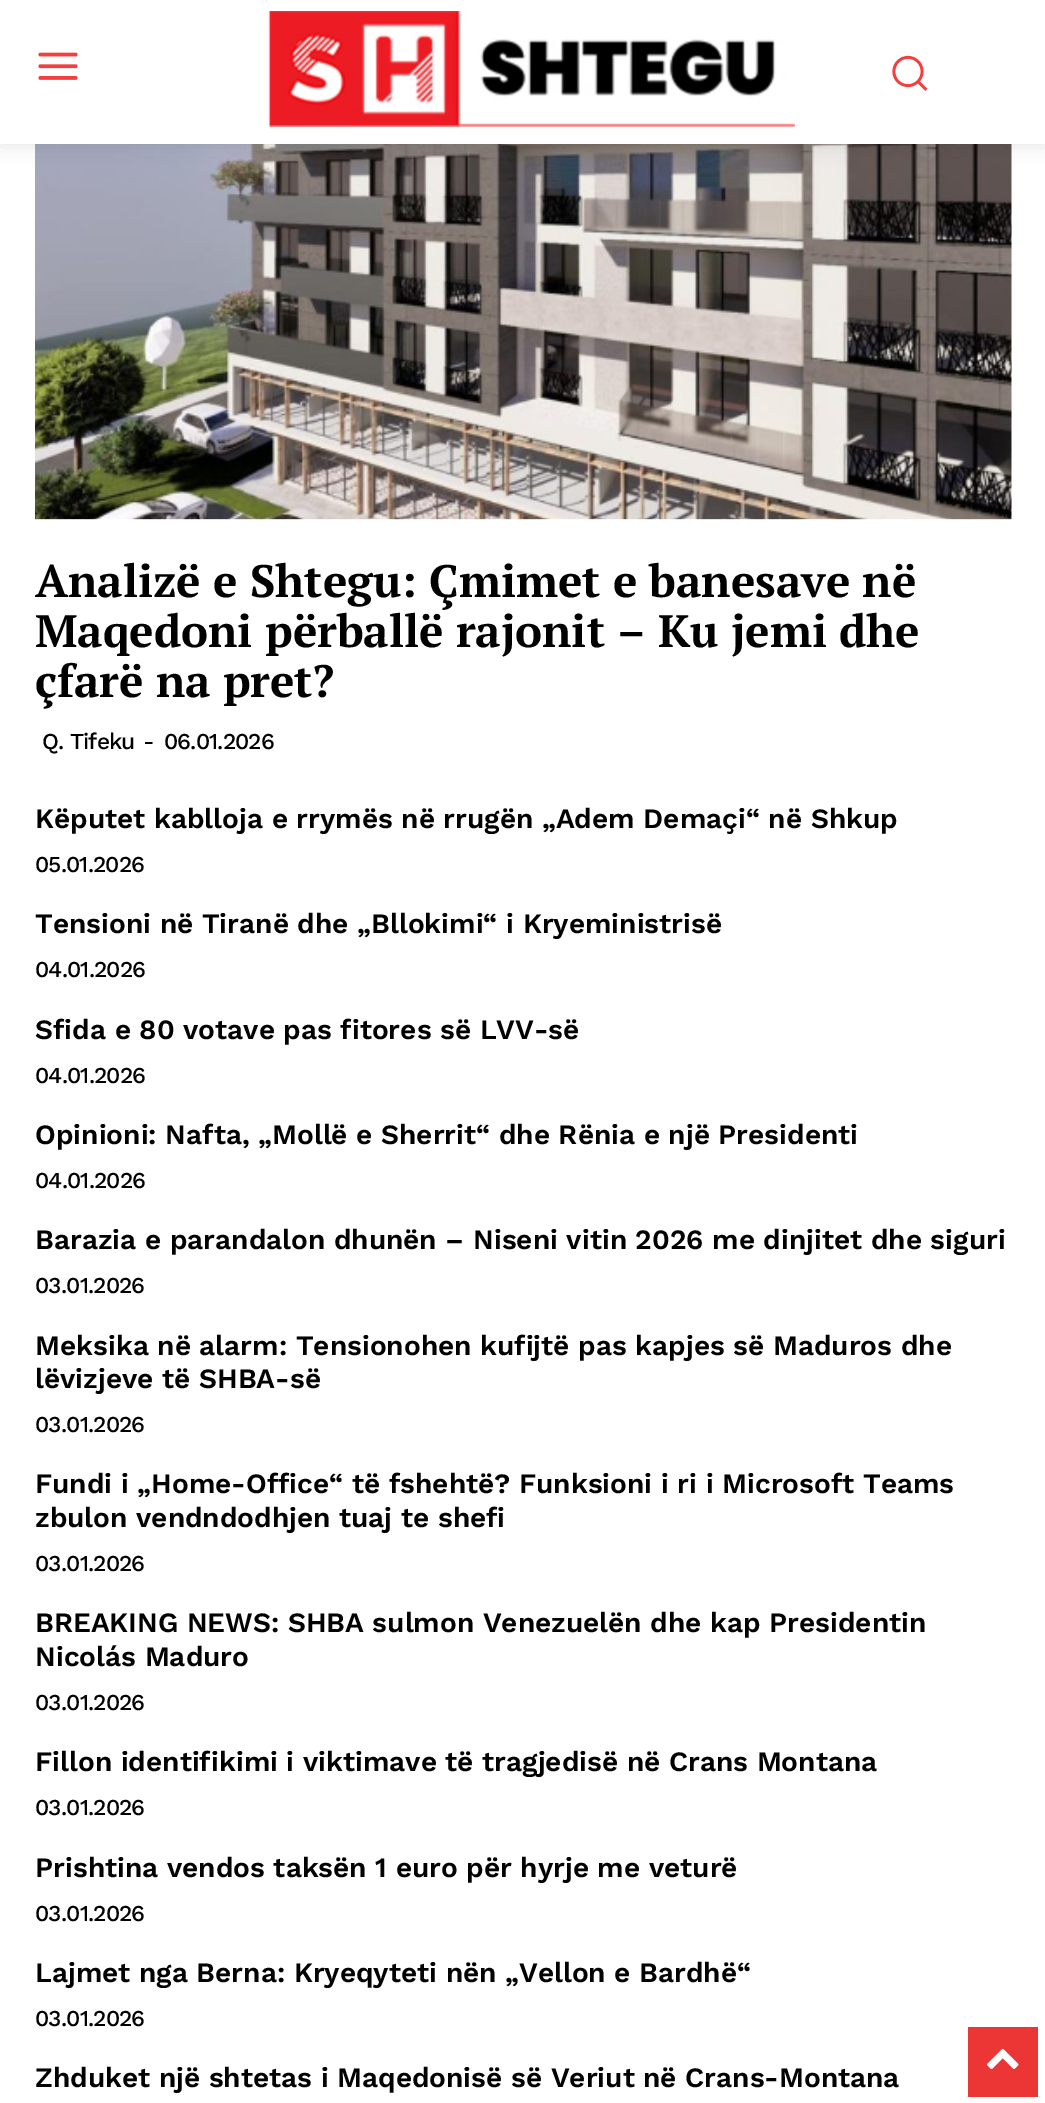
%!PS
<< /PageSize [1045 2103] /PageUsesTransparency true >> setpagedevice
/rgb { dup -16 bitshift 255 div exch dup -8 bitshift 255 and 255 div exch 255 and 255 div setrgbcolor } def
/font { [ exch dup neg 0 0 3 -1 roll 0 0 ] selectfont } def
/text { moveto show } def
/alpha { dup .setfillconstantalpha .setstrokeconstantalpha } def
/roundrect { 5 dict begin { /r /h /w /y /x } { exch def } forall
  x r add y moveto x w add y 2 copy h add r arct x w add y h add x 1 index r arct
  x y h add x y r arct x y 2 copy exch w add exch r arct closepath end } def
/shadow { 12 dict begin { /a /b /q /h /w /y /x } { exch def } forall gsave /was 0 def
  9 -2 -9 { dup b mul 4 div /e exch def 1 sub .425 mul 2.718 exch exp 1 add a .99 .min exch div /now exch def
    1 1 now sub 1 was sub div sub alpha /was now def
    w h .min e 2 mul add 0 gt { x e sub y e sub w e 2 mul add h e 2 mul add
      q e add b .6 mul add w h .min 2 div e add .min 0 .max roundrect fill } if } for grestore end } def
/picture { 5 dict begin { /h /w /y /x /name } { exch def } forall
  gsave x y translate w h scale
  w h 8 [w 0 0 h 0 0] name (r) file false 3 colorimage grestore end } def
0 .pushpdf14devicefilter
0 2103 translate 1 -1 scale
4 setmiterlimit
/s1 { /PTSerif-Bold 45.5 font 16#000000 rgb } def
/s2 { /WorkSans-SemiBold 28 font 16#000000 rgb } def
16#FFFFFF rgb
0 0 1045 2103 rectfill
(pic1.raw) 38 52 40 28 picture
(pic2.raw) 268 11 527 116 picture
(pic3.raw) 892 55 36 36 picture
(pic4.raw) 35 144 977 376 picture
gsave
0 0 moveto 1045 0 lineto 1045 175 lineto 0 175 lineto closepath 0 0 moveto 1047 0 lineto 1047 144 lineto 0 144 lineto closepath eoclip newpath
16#000000 rgb
0 4 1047 143 0 9 0.09 shadow
grestore
s1
(Analizë e Shtegu: Çmimet e banesave në) 35 597 text
(Maqedoni përballë rajonit – Ku jemi dhe) 35 647 text
(çfarë na pret?) 35 697 text
/WorkSans-Medium 22.75 font
42 749 moveto -0.9 0 (Q. Tifeku) ashow
/WorkSans-Regular 22.75 font
143 749 moveto -0.9 0 (-) ashow
/WorkSans-Medium 22.75 font
164 749 moveto -0.9 0 (06.01.2026) ashow
s2
(Këputet kablloja e rrymës në rrugën „Adem Demaçi“ në Shkup) 35 828 text
/WorkSans-Medium 22.75 font
35 872 moveto -0.9 0 (05.01.2026) ashow
s2
(Tensioni në Tiranë dhe „Bllokimi“ i Kryeministrisë) 35 933 text
/WorkSans-Medium 22.75 font
35 977 moveto -0.9 0 (04.01.2026) ashow
s2
(Sfida e 80 votave pas fitores së LVV-së) 35 1039 text
/WorkSans-Medium 22.75 font
35 1083 moveto -0.9 0 (04.01.2026) ashow
s2
(Opinioni: Nafta, „Mollë e Sherrit“ dhe Rënia e një Presidenti) 35 1144 text
/WorkSans-Medium 22.75 font
35 1188 moveto -0.9 0 (04.01.2026) ashow
s2
(Barazia e parandalon dhunën – Niseni vitin 2026 me dinjitet dhe siguri) 35 1249 text
/WorkSans-Medium 22.75 font
35 1293 moveto -0.9 0 (03.01.2026) ashow
s2
(Meksika në alarm: Tensionohen kufijtë pas kapjes së Maduros dhe) 35 1355 text
(lëvizjeve të SHBA-së) 35 1388 text
/WorkSans-Medium 22.75 font
35 1432 moveto -0.9 0 (03.01.2026) ashow
s2
(Fundi i „Home-Office“ të fshehtë? Funksioni i ri i Microsoft Teams) 35 1493 text
(zbulon vendndodhjen tuaj te shefi) 35 1527 text
/WorkSans-Medium 22.75 font
35 1571 moveto -0.9 0 (03.01.2026) ashow
s2
(BREAKING NEWS: SHBA sulmon Venezuelën dhe kap Presidentin) 35 1632 text
(Nicolás Maduro) 35 1666 text
/WorkSans-Medium 22.75 font
35 1710 moveto -0.9 0 (03.01.2026) ashow
s2
(Fillon identifikimi i viktimave të tragjedisë në Crans Montana) 35 1771 text
/WorkSans-Medium 22.75 font
35 1815 moveto -0.9 0 (03.01.2026) ashow
s2
(Prishtina vendos taksën 1 euro për hyrje me veturë) 35 1877 text
/WorkSans-Medium 22.75 font
35 1921 moveto -0.9 0 (03.01.2026) ashow
s2
(Lajmet nga Berna: Kryeqyteti nën „Vellon e Bardhë“) 35 1982 text
/WorkSans-Medium 22.75 font
35 2026 moveto -0.9 0 (03.01.2026) ashow
s2
(Zhduket një shtetas i Maqedonisë së Veriut në Crans-Montana) 35 2087 text
16#EC3535 rgb
968 2027 70 70 rectfill
(pic5.raw) 987 2048 32 21 picture
.poppdf14devicefilter showpage
